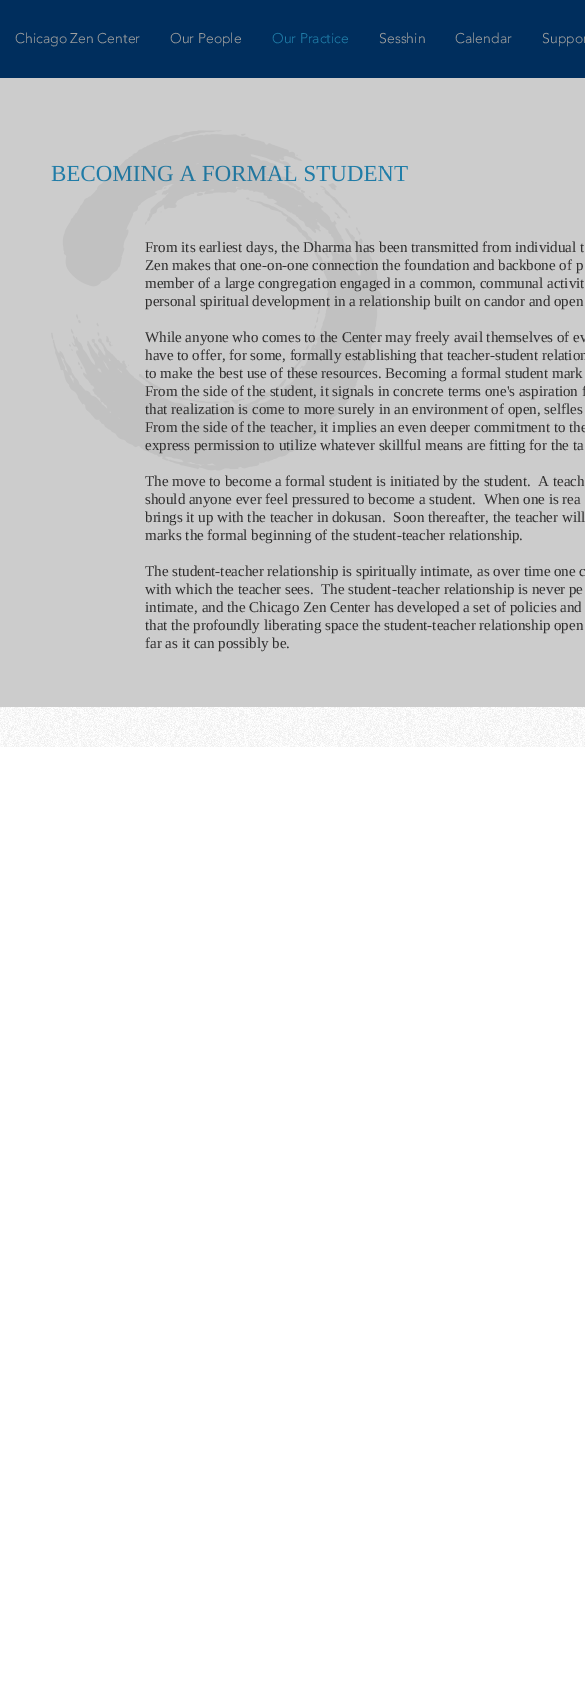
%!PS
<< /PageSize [585 1708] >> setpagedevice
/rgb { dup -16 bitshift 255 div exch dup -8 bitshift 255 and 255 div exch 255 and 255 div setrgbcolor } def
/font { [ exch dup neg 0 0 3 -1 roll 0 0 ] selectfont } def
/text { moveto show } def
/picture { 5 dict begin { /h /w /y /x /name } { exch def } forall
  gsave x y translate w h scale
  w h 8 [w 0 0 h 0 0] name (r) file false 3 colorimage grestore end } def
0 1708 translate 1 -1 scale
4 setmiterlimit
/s1 { /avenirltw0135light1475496-Light 14 font 16#A0A09F rgb } def
/s2 { /avenirltw0135light1475496-Light 14 font 16#207EA9 rgb } def
/s3 { /LiberationSerif-Regular 23 font 16#207EA9 rgb } def
/s4 { /LiberationSerif-Regular 15 font 16#2F2E2E rgb } def
16#FFFFFF rgb
0 0 585 1708 rectfill
16#002E5D rgb
0 0 585 78 rectfill
s1
(Chicago Zen Center) 15 43 text
(Our People) 170 43 text
s2
(Our Practice) 272 43 text
s1
(Sesshin) 379 43 text
(Calendar) 455 43 text
(Suppor) 542 43 text
16#CCCCCC rgb
0 78 585 629 rectfill
s3
(BECOMING A FORMAL STUDENT) 51 181 text
(pic1.raw) 51 130 333 341 picture
s4
(From its earliest days, the Dharma has been transmitted from individual t) 145 252 text
(Zen makes that one-on-one connection the foundation and backbone of p) 145 270 text
(member of a large congregation engaged in a common, communal activit) 145 288 text
(personal spiritual development in a relationship built on candor and open) 145 306 text
(While anyone who comes to the Center may freely avail themselves of ev) 145 342 text
(have to offer, for some, formally establishing that teacher-student relation) 145 360 text
(to make the best use of these resources. Becoming a formal student mark) 145 378 text
(From the side of the student, it signals in concrete terms one's aspiration f) 145 396 text
(that realization is come to more surely in an environment of open, selfles) 145 414 text
(From the side of the teacher, it implies an even deeper commitment to the) 145 432 text
(express permission to utilize whatever skillful means are fitting for the ta) 145 450 text
(The move to become a formal student is initiated by the student.  A teach) 145 486 text
(should anyone ever feel pressured to become a student.  When one is rea) 145 504 text
(brings it up with the teacher in dokusan.  Soon thereafter, the teacher will) 145 522 text
(marks the formal beginning of the student-teacher relationship.) 145 540 text
(The student-teacher relationship is spiritually intimate, as over time one c) 145 576 text
(with which the teacher sees.  The student-teacher relationship is never pe) 145 594 text
(intimate, and the Chicago Zen Center has developed a set of policies and) 145 612 text
(that the profoundly liberating space the student-teacher relationship open) 145 630 text
(far as it can possibly be.) 145 648 text
(pic2.raw) 0 707 585 40 picture
showpage
